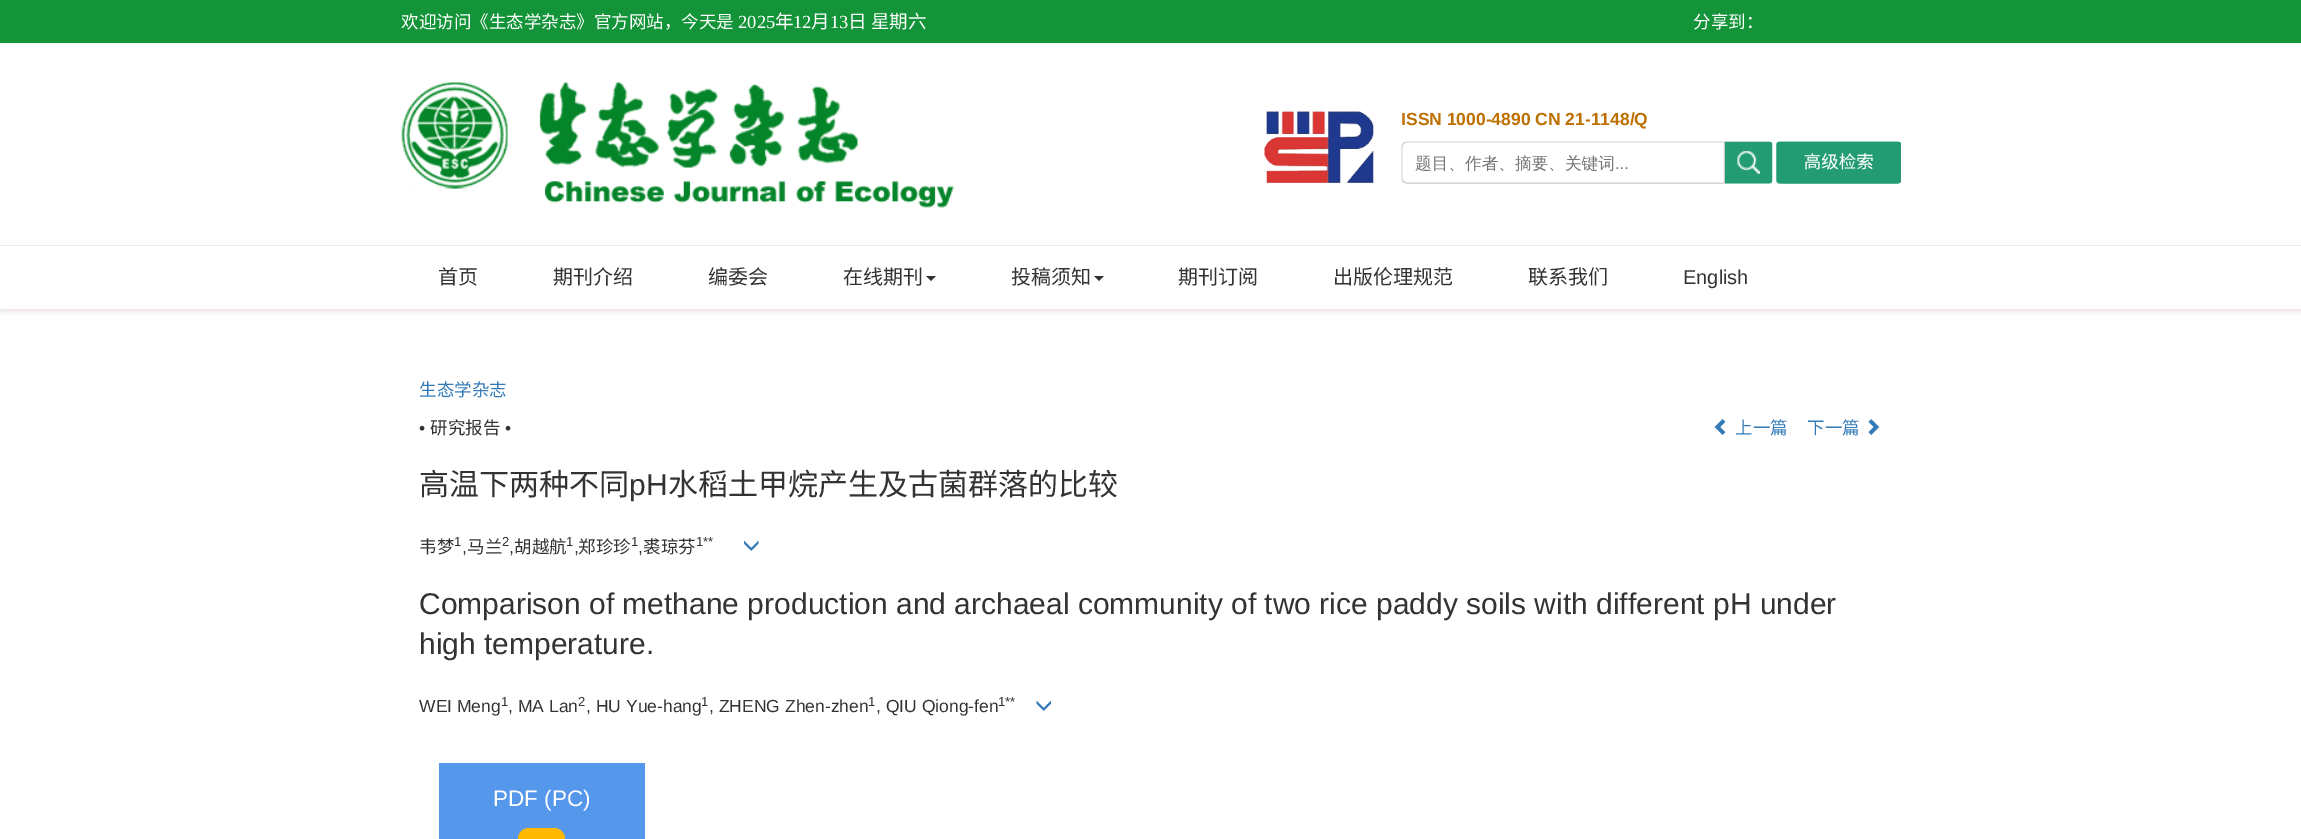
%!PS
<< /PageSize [2301 839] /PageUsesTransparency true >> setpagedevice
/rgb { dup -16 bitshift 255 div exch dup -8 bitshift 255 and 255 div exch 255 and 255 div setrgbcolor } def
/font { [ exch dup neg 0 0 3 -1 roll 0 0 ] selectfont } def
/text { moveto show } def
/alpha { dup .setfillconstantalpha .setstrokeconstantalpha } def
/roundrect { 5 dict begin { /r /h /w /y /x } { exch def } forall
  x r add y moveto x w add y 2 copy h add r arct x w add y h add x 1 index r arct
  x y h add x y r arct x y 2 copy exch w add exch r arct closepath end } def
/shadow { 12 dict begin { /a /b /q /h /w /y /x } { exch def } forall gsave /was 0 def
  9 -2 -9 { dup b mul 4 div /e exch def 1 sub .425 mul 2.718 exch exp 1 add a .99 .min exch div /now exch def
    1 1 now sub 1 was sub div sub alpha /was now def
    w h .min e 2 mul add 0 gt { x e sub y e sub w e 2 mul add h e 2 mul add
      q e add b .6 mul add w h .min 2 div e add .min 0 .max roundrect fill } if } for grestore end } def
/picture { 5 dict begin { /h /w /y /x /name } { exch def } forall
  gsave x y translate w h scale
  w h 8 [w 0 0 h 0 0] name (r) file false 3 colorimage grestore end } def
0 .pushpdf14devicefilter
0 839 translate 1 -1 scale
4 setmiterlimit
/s1 { /NotoSansCJKSC-Regular 17.5 font 16#FFFFFF rgb } def
/s2 { /LiberationSerif-Regular 18.5 font 16#FFFFFF rgb } def
/s3 { /NotoSansCJKSC-Regular 18.5 font 16#FFFFFF rgb } def
/s4 { /LiberationSans-Bold 17.5 font 16#BD7000 rgb } def
/s5 { /NotoSansCJKSC-Regular 20 font 16#333333 rgb } def
/s6 { /LiberationSans-Regular 20 font 16#333333 rgb } def
/s7 { /NotoSansCJKSC-Regular 17.5 font 16#337AB7 rgb } def
/s8 { /LiberationSans-Regular 17.5 font 16#333333 rgb } def
/s9 { /NotoSansCJKSC-Regular 17.5 font 16#333333 rgb } def
/s10 { /NotoSansCJKSC-Regular 30 font 16#333333 rgb } def
/s11 { /LiberationSans-Regular 30 font 16#333333 rgb } def
/s12 { /LiberationSans-Regular 13 font 16#333333 rgb } def
/s13 { /LiberationSans-Regular 22.5 font 16#FFFFFF rgb } def
16#FFFFFF rgb
0 0 2301 839 rectfill
16#139438 rgb
0 0 2301 43 rectfill
s1
(欢迎访问《生态学杂志》官方网站，今天是) 401 28 text
s2
(2025) 738 28 text
s3
(年) 775 28 text
s2
(12) 793 28 text
s3
(月) 811 28 text
s2
(13) 830 28 text
s3
(日 星期六) 848 28 text
s1
(分享到：) 1693 28 text
(pic1.raw) 401 82 553 126 picture
(pic2.raw) 1264 111 110 73 picture
s4
(ISSN 1000-4890 CN 21-1148/Q) 1401 125 text
(pic3.raw) 1401 141 500 43 picture
16#E4DADA rgb
1 248 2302 63 0 3 1 shadow
16#FFFFFF rgb
0 246 2301 63 rectfill
16#E9EBE9 rgb
0 245 2301 1 rectfill
s5
(首页) 438 284 text
(期刊介绍) 553 284 text
(编委会) 708 284 text
(在线期刊) 843 284 text
926 276 moveto 936 276 lineto 931 281 lineto closepath fill
(投稿须知) 1011 284 text
1094 276 moveto 1104 276 lineto 1099 281 lineto closepath fill
(期刊订阅) 1178 284 text
(出版伦理规范) 1333 284 text
(联系我们) 1528 284 text
s6
(English) 1683 284 text
s7
(生态学杂志) 419 396 text
s8
(•) 419 434 text
s9
(研究报告) 430 434 text
s8
(•) 505 434 text
(pic4.raw) 1714 419 12 16 picture
s7
(上一篇) 1735 434 text
(下一篇) 1807 434 text
(pic5.raw) 1868 419 12 16 picture
s10
(高温下两种不同) 419 495 text
s11
(pH) 629 495 text
s10
(水稻土甲烷产生及古菌群落的比较) 668 495 text
s9
(韦梦) 419 553 text
s12
(1) 454 546 text
s9
(马兰) 467 553 text
s12
(2) 502 546 text
s9
(胡越航) 514 553 text
s12
(1) 566 546 text
s9
(郑珍珍) 578 553 text
s12
(1) 631 546 text
s9
(裘琼芬) 643 553 text
s12
(1**) 696 546 text
(pic6.raw) 744 540 15 11 picture
s8
(,) 462 553 text
(,) 509 553 text
(,) 574 553 text
(,) 638 553 text
s11
(Comparison of methane production and archaeal community of two rice paddy soils with different pH under) 419 614 text
(high temperature.) 419 654 text
s8
(WEI Meng) 419 712 text
s12
(1) 501 706 text
s8
(, MA Lan) 508 712 text
s12
(2) 578 706 text
s8
(, HU Yue-hang) 586 712 text
s12
(1) 701 706 text
s8
(, ZHENG Zhen-zhen) 709 712 text
s12
(1) 868 706 text
s8
(, QIU Qiong-fen) 876 712 text
s12
(1**) 998 706 text
(pic7.raw) 1036 700 15 11 picture
16#5497EB rgb
439 763 206 76 rectfill
s13
(PDF \(PC\)) 493 806 text
16#FFB900 rgb
518 828 47 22 11 roundrect fill
.poppdf14devicefilter showpage
